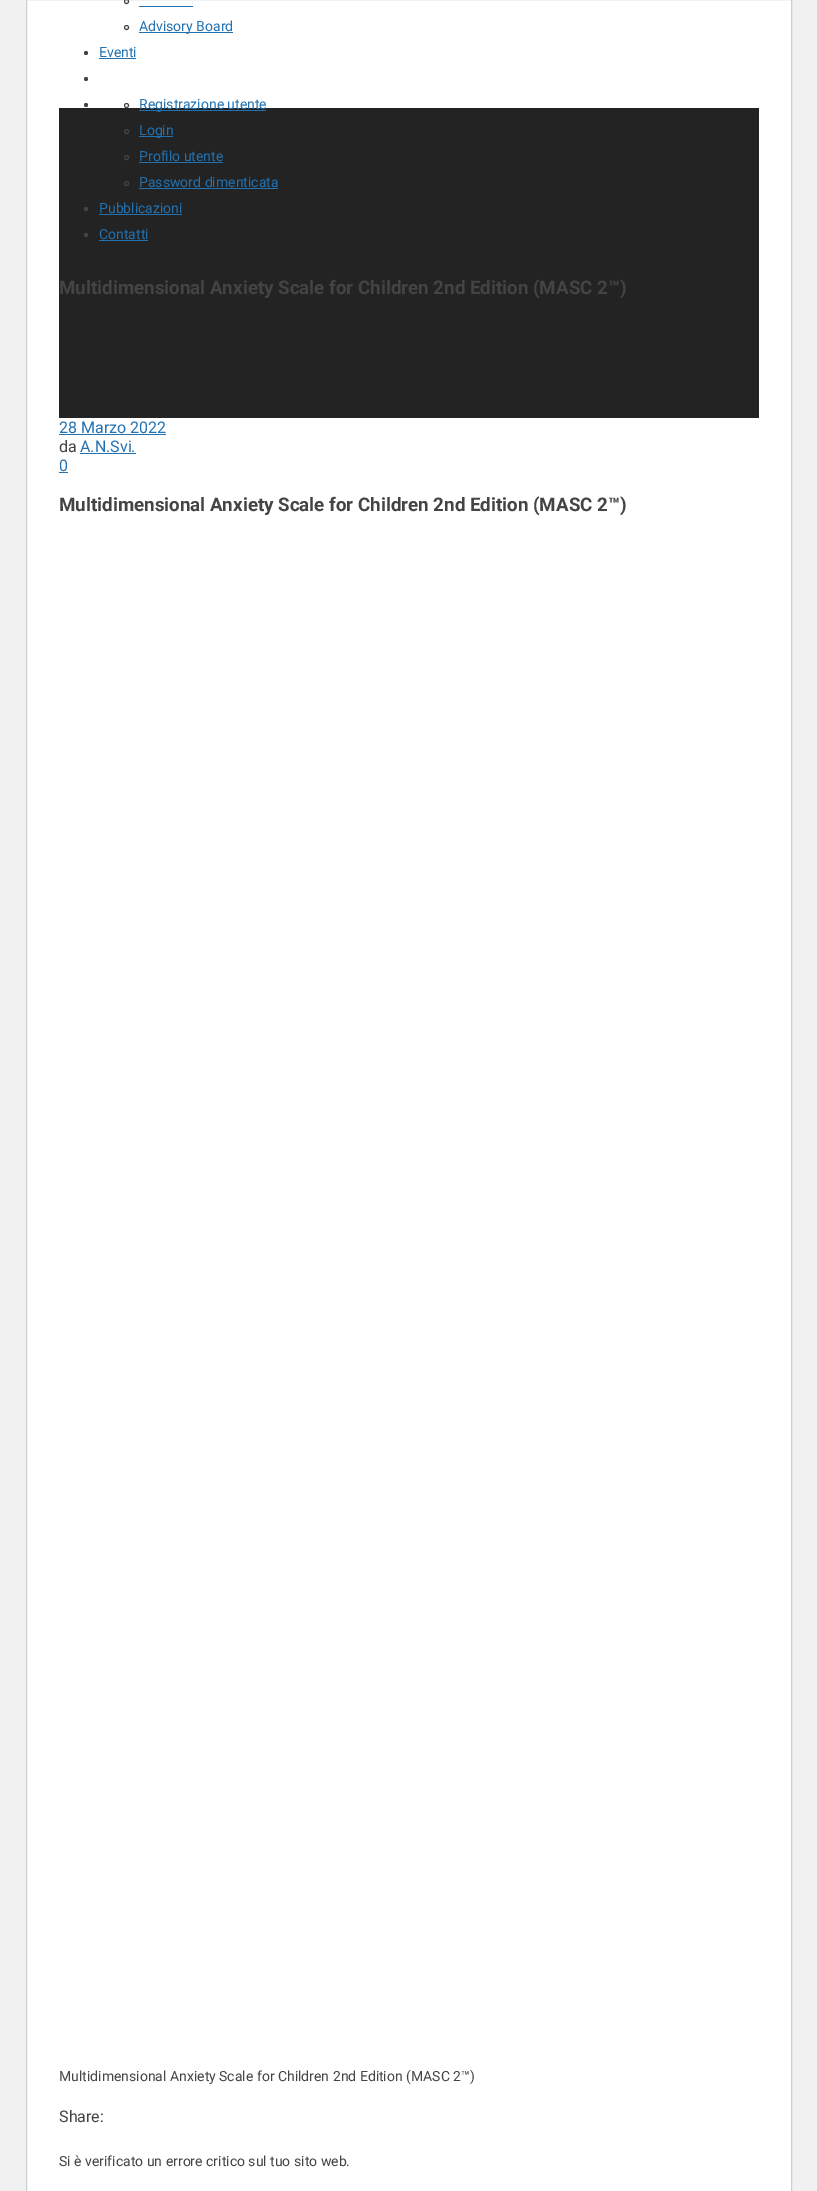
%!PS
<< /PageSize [817 2191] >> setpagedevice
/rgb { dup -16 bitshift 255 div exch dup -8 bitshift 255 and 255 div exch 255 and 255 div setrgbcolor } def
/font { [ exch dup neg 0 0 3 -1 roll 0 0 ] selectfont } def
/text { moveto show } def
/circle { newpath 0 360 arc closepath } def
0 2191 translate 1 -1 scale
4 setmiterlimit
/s1 { /Roboto-Regular 14 font 16#2271B1 rgb } def
/s2 { /Roboto-Bold 18.75 font 16#444444 rgb } def
/s3 { /Roboto-Regular 16 font 16#2271B1 rgb } def
/s4 { /Roboto-Regular 16 font 16#444444 rgb } def
/s5 { /Roboto-Regular 14 font 16#444444 rgb } def
16#F1F1F1 rgb
0 0 817 2191 rectfill
16#FFFFFF rgb
26.5 -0.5 moveto 791.5 -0.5 lineto 791.5 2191.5 lineto 26.5 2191.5 lineto closepath gsave fill grestore
16#CCD0D4 rgb
stroke
16#444444 rgb
126.5 1.5 2 circle stroke
16#2271B1 rgb
139 6 54 1 rectfill
16#444444 rgb
126.5 27.5 2 circle stroke
16#2271B1 rgb
139 32 94 1 rectfill
s1
(Advisory Board) 139 31 text
16#444444 rgb
86 53 2 circle fill
s1
(Eventi) 99 57 text
99 58 37 1 rectfill
16#444444 rgb
86 79 2 circle fill
86 105 2 circle fill
126.5 105.5 2 circle stroke
16#232323 rgb
59 108 700 310 rectfill
16#2271B1 rgb
139 110 127 1 rectfill
(Registrazione utente) 139 109 text
16#444444 rgb
126.5 131.5 2 circle stroke
16#2271B1 rgb
139 136 34 1 rectfill
(Login) 139 135 text
16#444444 rgb
126.5 157.5 2 circle stroke
s1
(Profilo utente) 139 161 text
139 162 84 1 rectfill
16#444444 rgb
126.5 183.5 2 circle stroke
s1
(Password dimenticata) 139 187 text
139 188 139 1 rectfill
16#444444 rgb
86 209 2 circle fill
s1
(Pubblicazioni) 99 213 text
99 214 83 1 rectfill
16#444444 rgb
86 235 2 circle fill
s1
(Contatti) 99 239 text
99 240 49 1 rectfill
s2
(Multidimensional Anxiety Scale for Children 2nd Edition \(MASC 2™\)) 59 294 text
s3
(28 Marzo 2022) 59 433 text
59 434 107 1 rectfill
s4
(da) 59 452 text
s3
(A.N.Svi.) 80 452 text
80 453 56 1 rectfill
(0) 59 471 text
59 472 9 1 rectfill
s2
(Multidimensional Anxiety Scale for Children 2nd Edition \(MASC 2™\)) 59 511 text
s5
(Multidimensional Anxiety Scale for Children 2nd Edition \(MASC 2™\)) 59 2081 text
s4
(Share:) 59 2122 text
s5
(Si è verificato un errore critico sul tuo sito web.) 59 2166 text
showpage
